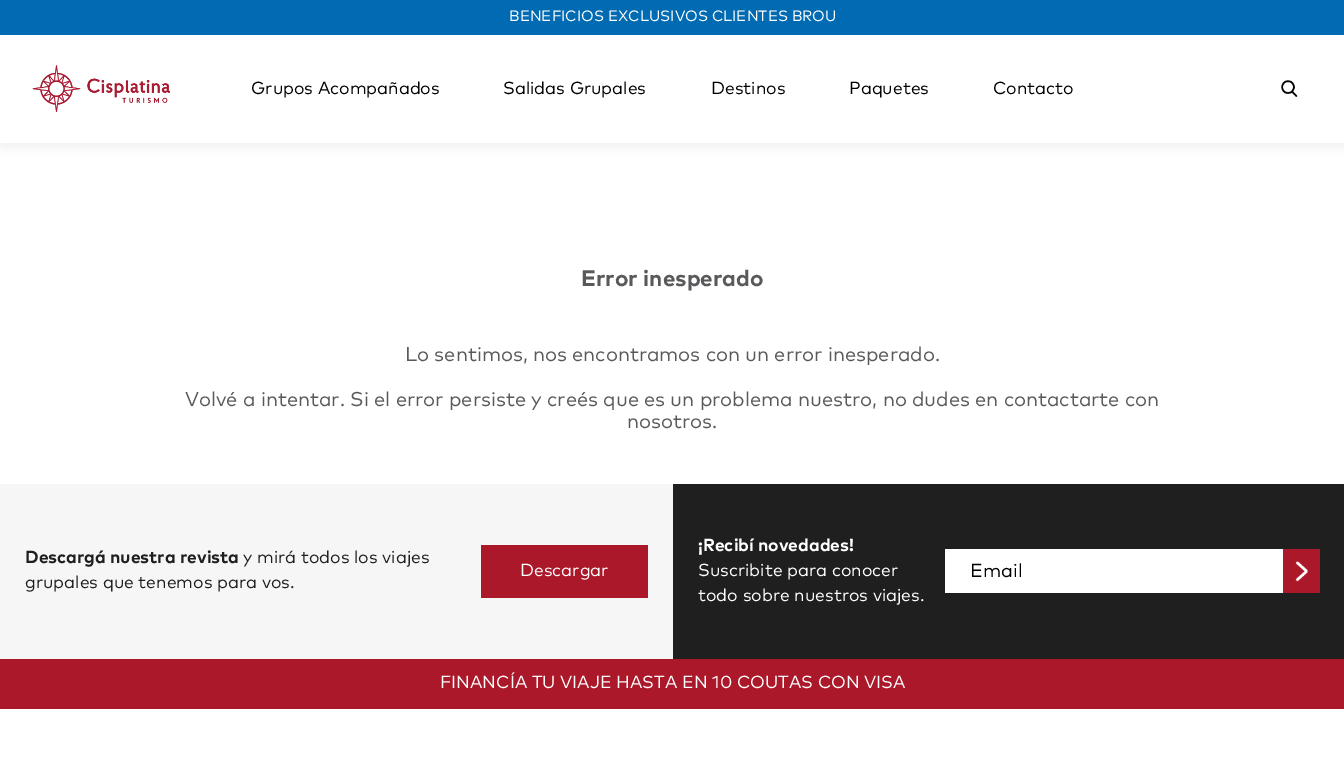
%!PS
<< /PageSize [1344 774] /PageUsesTransparency true >> setpagedevice
/rgb { dup -16 bitshift 255 div exch dup -8 bitshift 255 and 255 div exch 255 and 255 div setrgbcolor } def
/font { [ exch dup neg 0 0 3 -1 roll 0 0 ] selectfont } def
/text { moveto show } def
/alpha { dup .setfillconstantalpha .setstrokeconstantalpha } def
/roundrect { 5 dict begin { /r /h /w /y /x } { exch def } forall
  x r add y moveto x w add y 2 copy h add r arct x w add y h add x 1 index r arct
  x y h add x y r arct x y 2 copy exch w add exch r arct closepath end } def
/shadow { 12 dict begin { /a /b /q /h /w /y /x } { exch def } forall gsave /was 0 def
  9 -2 -9 { dup b mul 4 div /e exch def 1 sub .425 mul 2.718 exch exp 1 add a .99 .min exch div /now exch def
    1 1 now sub 1 was sub div sub alpha /was now def
    w h .min e 2 mul add 0 gt { x e sub y e sub w e 2 mul add h e 2 mul add
      q e add b .6 mul add w h .min 2 div e add .min 0 .max roundrect fill } if } for grestore end } def
/picture { 5 dict begin { /h /w /y /x /name } { exch def } forall
  gsave x y translate w h scale
  w h 8 [w 0 0 h 0 0] name (r) file false 3 colorimage grestore end } def
0 .pushpdf14devicefilter
0 774 translate 1 -1 scale
4 setmiterlimit
/s1 { /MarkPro-Regular 15 font 16#FFFFFF rgb } def
/s2 { /MarkPro-Regular 17.5 font 16#000000 rgb } def
/s3 { /MarkPro-Bold 22.5 font 16#58595B rgb } def
/s4 { /MarkPro-Regular 20 font 16#58595B rgb } def
/s5 { /MarkPro-Bold 17.5 font 16#1F1F1F rgb } def
/s6 { /MarkPro-Regular 17.5 font 16#1F1F1F rgb } def
/s7 { /MarkPro-Regular 17.5 font 16#FFFFFF rgb } def
/s8 { /MarkPro-Bold 17.5 font 16#FFFFFF rgb } def
/s9 { /MarkPro-Regular 19 font 16#000000 rgb } def
16#FFFFFF rgb
0 0 1344 774 rectfill
16#000000 rgb
0 5 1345 143 0 5.5 0.05 shadow
16#FFFFFF rgb
0 35 1344 108 rectfill
16#006BB2 rgb
0 0 1344 35 rectfill
s1
(BENEFICIOS EXCLUSIVOS CLIENTES BROU) 509 21 text
(pic1.raw) 32 65 138 48 picture
s2
(Grupos Acompañados) 251 94 text
(Salidas Grupales) 503 94 text
(Destinos) 711 94 text
(Paquetes) 849 94 text
(Contacto) 993 94 text
(pic2.raw) 1281 80 17 17 picture
s3
(Error inesperado) 581 286 text
s4
(Lo sentimos, nos encontramos con un error inesperado.) 405 361 text
(Volvé a intentar. Si el error persiste y creés que es un problema nuestro, no dudes en contactarte con) 185 406 text
(nosotros.) 627 428 text
16#F6F6F6 rgb
0 484 673 175 rectfill
s5
(Descargá nuestra revista) 25 563 text
s6
(y mirá todos los viajes) 243 563 text
(grupales que tenemos para vos.) 25 588 text
16#AA1829 rgb
481 545 167 53 rectfill
s7
(Descargar) 520 576 text
16#1F1F1F rgb
673 484 671 175 rectfill
s8
(¡Recibí novedades!) 698 551 text
s7
(Suscribite para conocer) 698 576 text
(todo sobre nuestros viajes.) 698 601 text
945 549 338 44 rectfill
s9
(Email) 970 577 text
16#AA1829 rgb
1283 549 37 44 rectfill
(pic3.raw) 1295 561 13 21 picture
0 659 1344 50 rectfill
s7
(FINANCÍA TU VIAJE HASTA EN 10 COUTAS CON VISA) 440 688 text
.poppdf14devicefilter showpage
